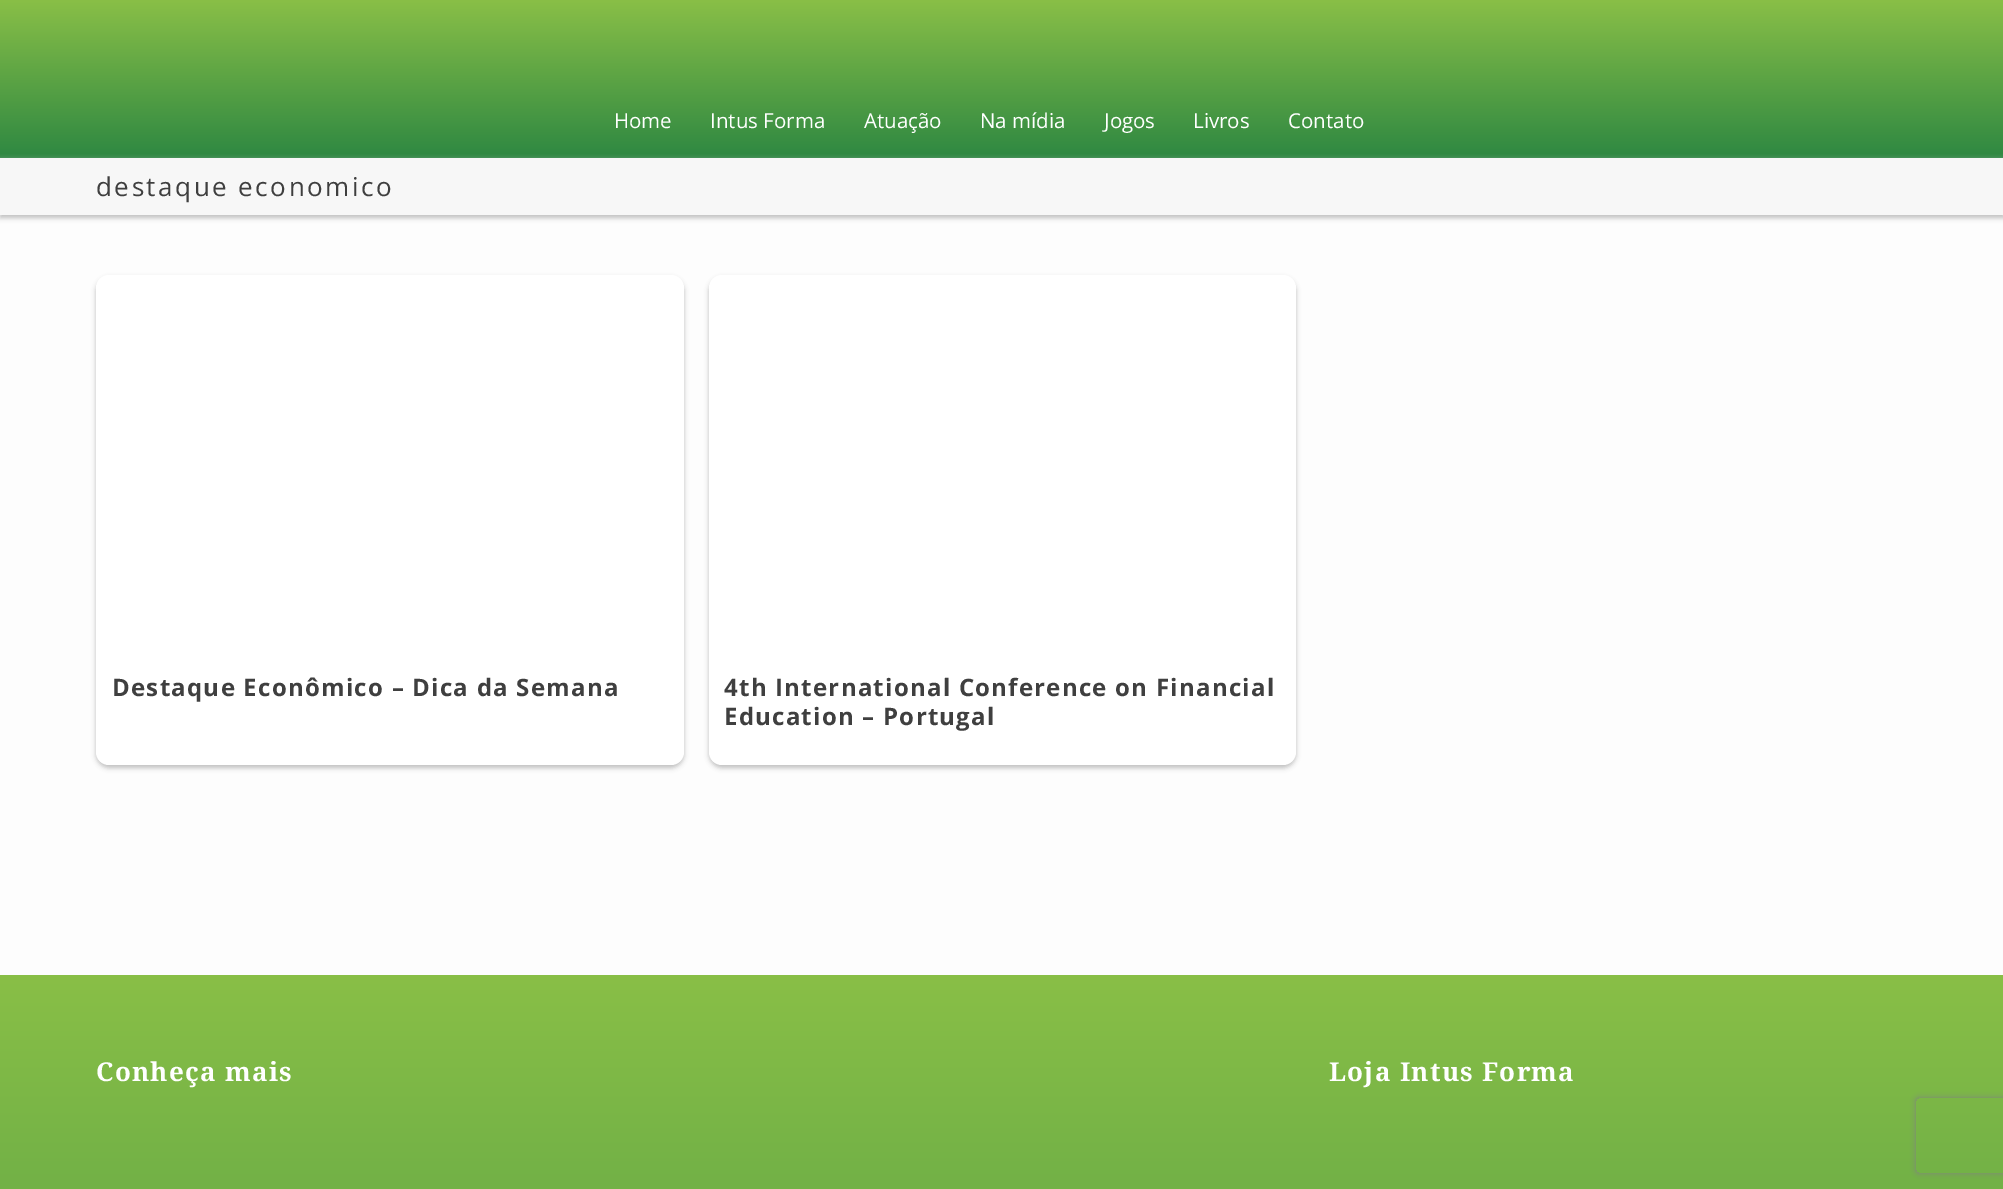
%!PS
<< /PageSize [2003 1189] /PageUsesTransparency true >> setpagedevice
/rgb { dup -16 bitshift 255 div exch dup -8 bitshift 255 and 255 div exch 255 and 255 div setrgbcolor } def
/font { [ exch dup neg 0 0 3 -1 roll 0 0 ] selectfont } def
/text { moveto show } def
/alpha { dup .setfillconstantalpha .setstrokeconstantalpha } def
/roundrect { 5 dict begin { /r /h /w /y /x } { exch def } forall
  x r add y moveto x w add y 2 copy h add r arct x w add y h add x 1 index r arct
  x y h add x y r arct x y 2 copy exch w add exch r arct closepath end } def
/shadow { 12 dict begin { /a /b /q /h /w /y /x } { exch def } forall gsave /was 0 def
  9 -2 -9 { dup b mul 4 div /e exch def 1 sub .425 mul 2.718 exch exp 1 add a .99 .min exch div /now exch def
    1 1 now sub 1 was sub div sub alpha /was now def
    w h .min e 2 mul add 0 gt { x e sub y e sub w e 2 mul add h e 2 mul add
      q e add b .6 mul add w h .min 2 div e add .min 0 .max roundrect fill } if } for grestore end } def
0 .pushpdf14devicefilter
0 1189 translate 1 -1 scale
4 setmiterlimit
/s1 { /OpenSans-Regular 20.5 font 16#FFFFFF rgb } def
16#FDFDFD rgb
0 0 2003 1189 rectfill
gsave 0 0 moveto 2003 0 lineto 2003 158 lineto 0 158 lineto closepath clip newpath
<< /ShadingType 2 /ColorSpace /DeviceRGB /Coords [1002 0 1002 158] /Extend [true true] /Function << /FunctionType 2 /Domain [0 1] /C0 [0.537 0.749 0.278] /C1 [0.18 0.533 0.259] /N 1 >> >> shfill grestore
s1
(Home) 614 128 text
(Intus Forma) 710 128 text
(Atuação) 864 128 text
(Na mídia) 980 128 text
(Jogos) 1104 128 text
(Livros) 1193 128 text
(Contato) 1288 128 text
16#BFBFBF rgb
0 160 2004 58 0 2.5 1 shadow
16#F7F7F7 rgb
0 158 2003 57 rectfill
/OpenSans-Regular 26 font
16#3F3F3F rgb
96 196 moveto 2.5 0 (destaque economico) ashow
16#BFBFBF rgb
96 278 588 490 13 2.5 1 shadow
16#FFFFFF rgb
96 275 588 490 13 roundrect fill
/OpenSans-Bold 24 font
16#3F3F3F rgb
112 696 moveto 1.25 0 (Destaque Econômico – Dica da Semana) ashow
16#BFBFBF rgb
709 278 587 490 13 2.5 1 shadow
16#FFFFFF rgb
709 275 587 490 13 roundrect fill
16#3F3F3F rgb
724 696 moveto 1.25 0 (4th International Conference on Financial) ashow
724 725 moveto 1.25 0 (Education – Portugal) ashow
gsave 0 975 moveto 2003 975 lineto 2003 1189 lineto 0 1189 lineto closepath clip newpath
<< /ShadingType 2 /ColorSpace /DeviceRGB /Coords [1002 975 1002 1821] /Extend [true true] /Function << /FunctionType 2 /Domain [0 1] /C0 [0.537 0.749 0.278] /C1 [0.18 0.533 0.259] /N 1 >> >> shfill grestore
/NotoSerif-Bold 26 font
16#FFFFFF rgb
96 1081 moveto 1.25 0 (Conheça mais) ashow
1329 1081 moveto 1.25 0 (Loja Intus Forma) ashow
gsave
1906 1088 moveto 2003 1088 lineto 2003 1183 lineto 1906 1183 lineto closepath 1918.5 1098 moveto 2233.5 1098 lineto 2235 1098 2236 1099 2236 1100.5 curveto 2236 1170.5 lineto 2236 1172 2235 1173 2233.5 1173 curveto 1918.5 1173 lineto 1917 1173 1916 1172 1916 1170.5 curveto 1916 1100.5 lineto 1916 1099 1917 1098 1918.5 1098 curveto closepath eoclip newpath
16#808080 rgb
1916 1098 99 75 2.5 3 1 shadow
grestore
.poppdf14devicefilter showpage
